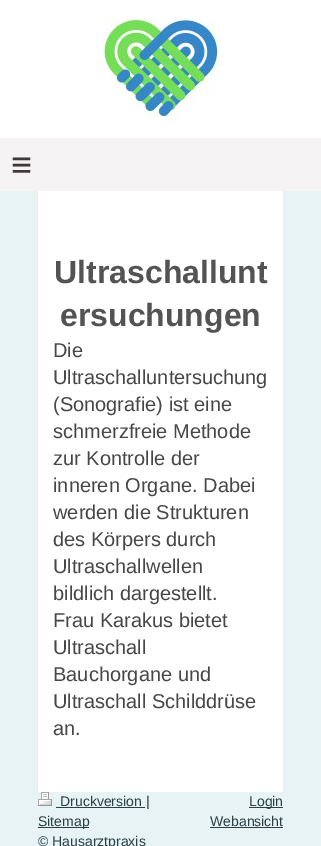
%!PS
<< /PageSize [321 846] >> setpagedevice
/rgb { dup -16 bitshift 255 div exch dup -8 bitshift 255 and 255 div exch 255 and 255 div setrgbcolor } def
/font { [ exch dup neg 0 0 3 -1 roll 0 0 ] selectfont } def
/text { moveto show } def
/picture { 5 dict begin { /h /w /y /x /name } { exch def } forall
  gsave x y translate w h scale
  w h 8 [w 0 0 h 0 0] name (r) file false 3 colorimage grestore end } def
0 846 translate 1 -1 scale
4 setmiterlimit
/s1 { /LiberationSans-Bold 32 font 16#535353 rgb } def
/s2 { /LiberationSans-Regular 20 font 16#474747 rgb } def
/s3 { /LiberationSans-Regular 14 font 16#294044 rgb } def
16#E7F3F5 rgb
0 0 321 846 rectfill
16#FFFFFF rgb
0 0 321 138 rectfill
(pic1.raw) 102 13 118 112 picture
16#F5F3F3 rgb
0 138 321 53 rectfill
/LiberationSans-Regular 36 font
16#403939 rgb
11 177 moveto 10 0 (≡) ashow
16#FFFFFF rgb
38 191 245 601 rectfill
s1
(Ultraschallunt) 54 283 text
(ersuchungen) 60 326 text
s2
(Die) 53 357 text
(Ultraschalluntersuchung) 53 384 text
(\(Sonografie\) ist eine) 53 411 text
(schmerzfreie Methode) 53 438 text
(zur Kontrolle der) 53 465 text
(inneren Organe. Dabei) 53 492 text
(werden die Strukturen) 53 519 text
(des Körpers durch) 53 546 text
(Ultraschallwellen) 53 573 text
(bildlich dargestellt.) 53 600 text
(Frau Karakus bietet) 53 627 text
(Ultraschall) 53 654 text
(Bauchorgane und) 53 681 text
(Ultraschall Schilddrüse) 53 708 text
(an.) 53 735 text
(pic2.raw) 38 792 14 14 picture
16#294044 rgb
56 807 89 1 rectfill
s3
(Druckversion |) 60 806 text
38 827 51 1 rectfill
(Sitemap) 38 826 text
(© Hausarztpraxis) 38 846 text
249 807 34 1 rectfill
(Login) 249 806 text
(Webansicht) 210 826 text
210 827 73 1 rectfill
showpage
